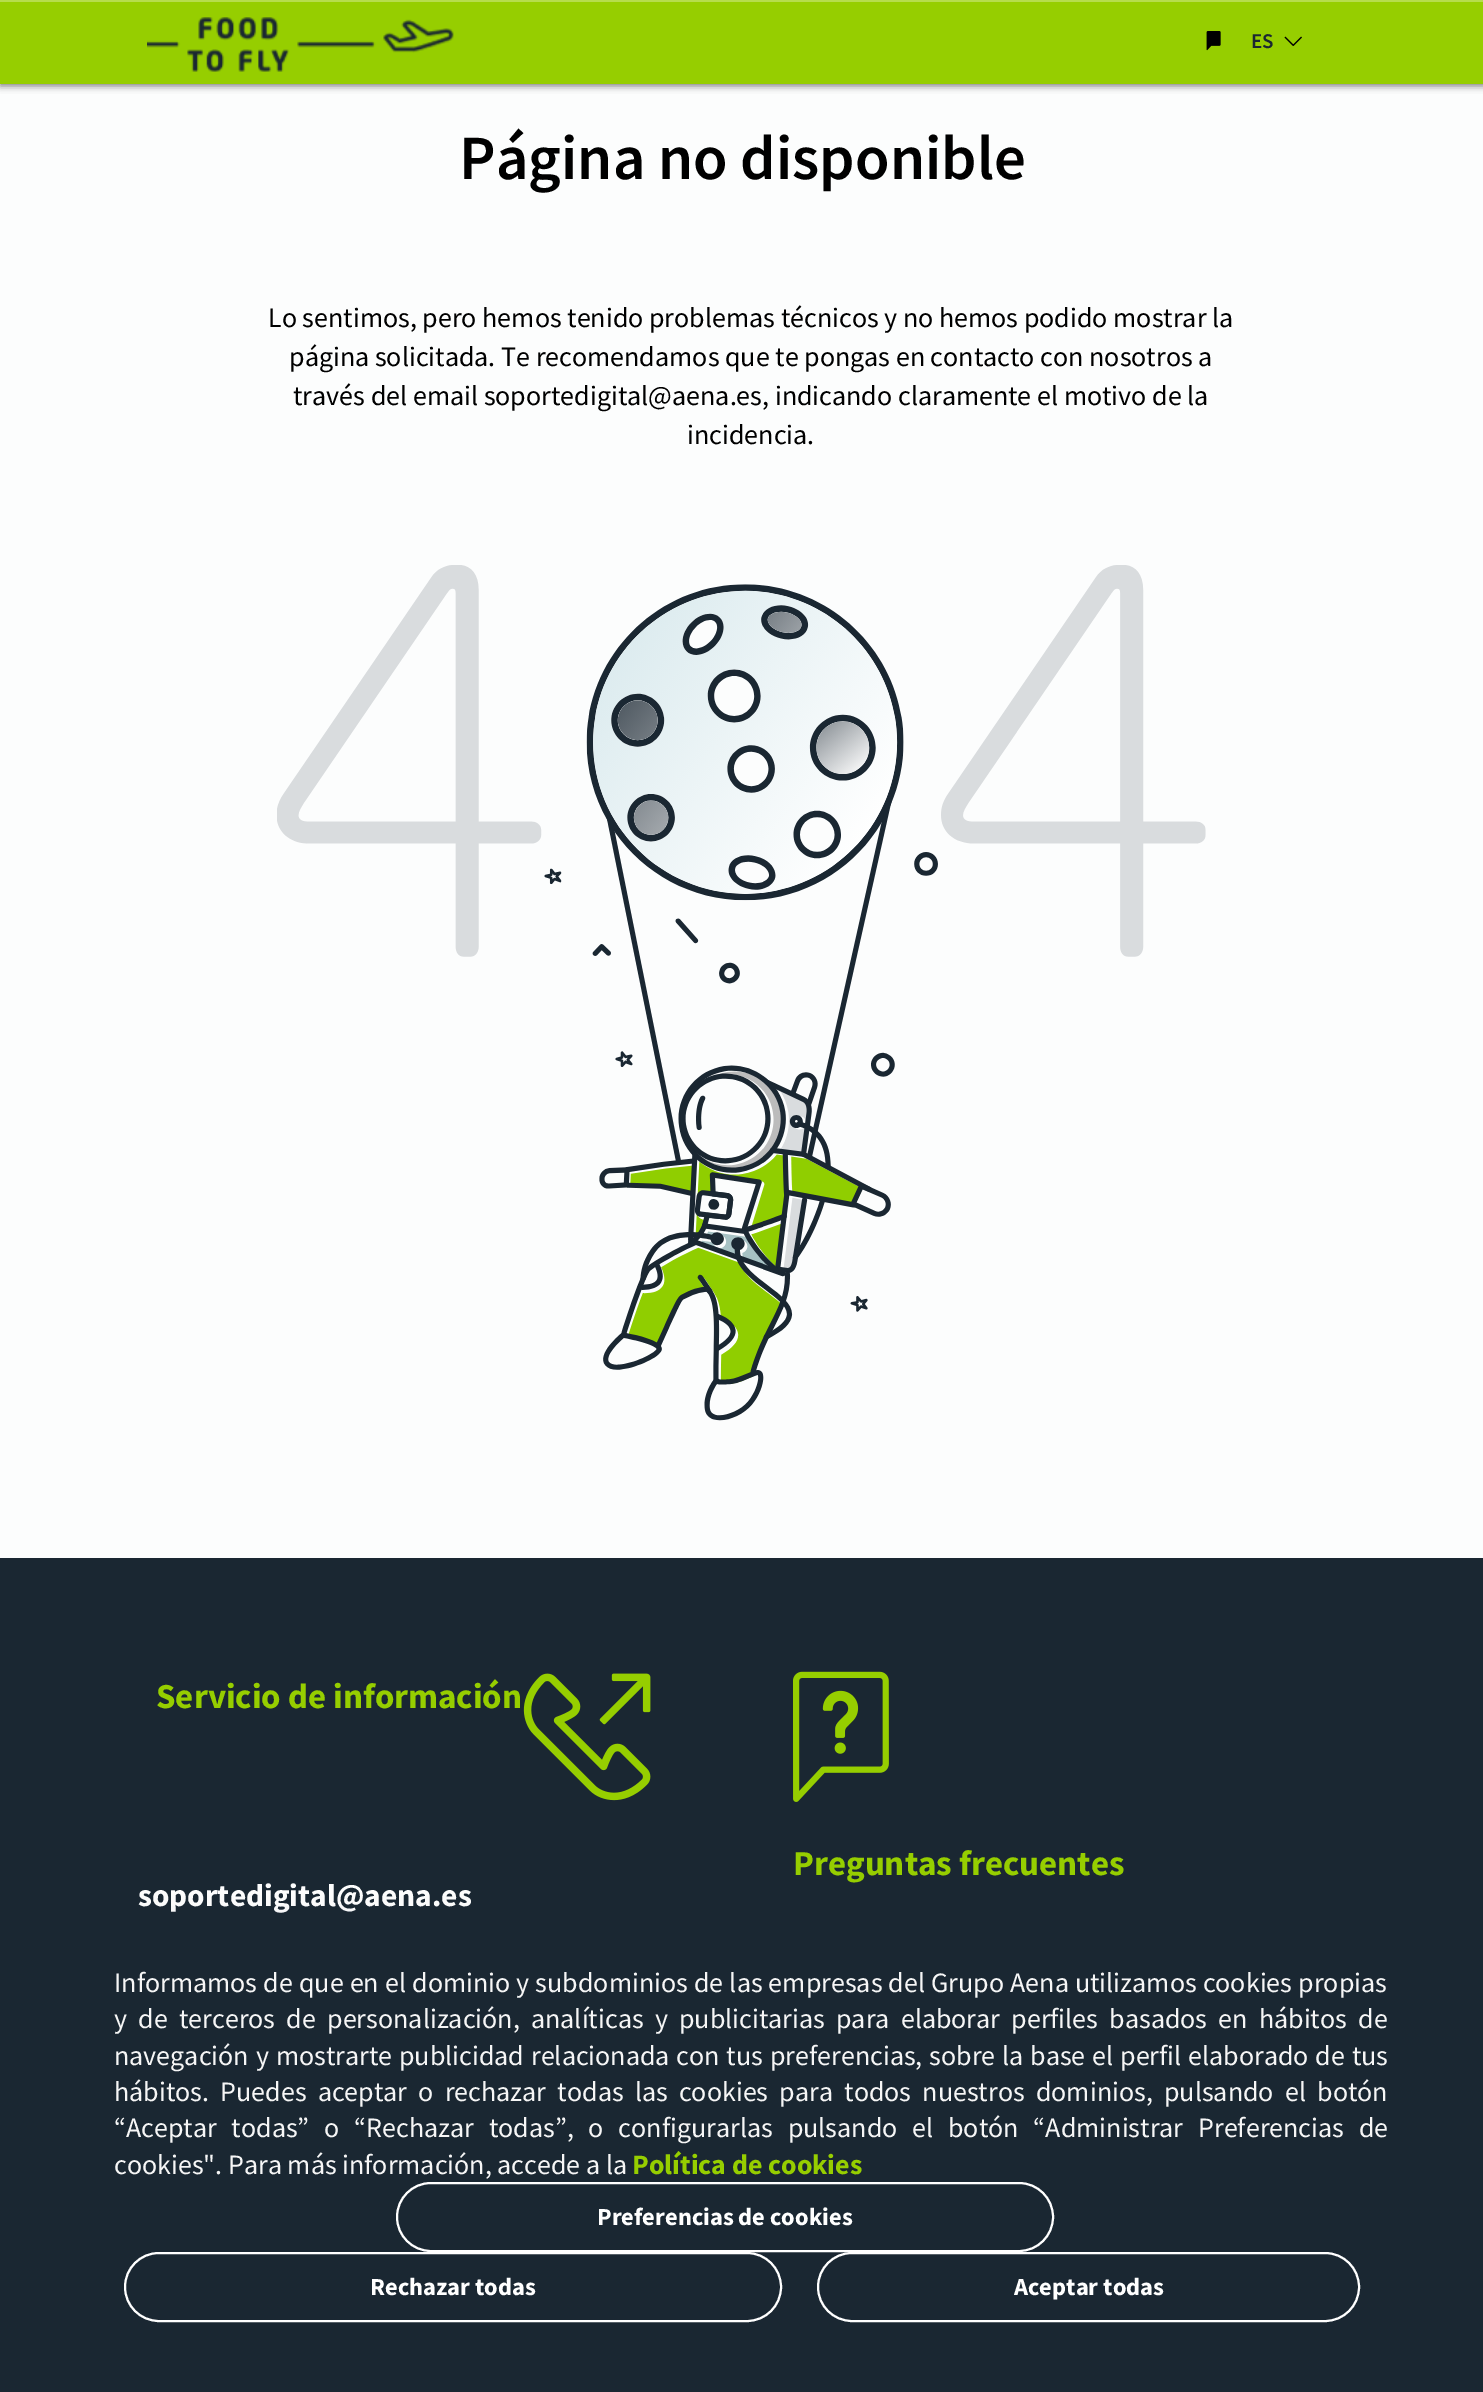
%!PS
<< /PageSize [1483 2392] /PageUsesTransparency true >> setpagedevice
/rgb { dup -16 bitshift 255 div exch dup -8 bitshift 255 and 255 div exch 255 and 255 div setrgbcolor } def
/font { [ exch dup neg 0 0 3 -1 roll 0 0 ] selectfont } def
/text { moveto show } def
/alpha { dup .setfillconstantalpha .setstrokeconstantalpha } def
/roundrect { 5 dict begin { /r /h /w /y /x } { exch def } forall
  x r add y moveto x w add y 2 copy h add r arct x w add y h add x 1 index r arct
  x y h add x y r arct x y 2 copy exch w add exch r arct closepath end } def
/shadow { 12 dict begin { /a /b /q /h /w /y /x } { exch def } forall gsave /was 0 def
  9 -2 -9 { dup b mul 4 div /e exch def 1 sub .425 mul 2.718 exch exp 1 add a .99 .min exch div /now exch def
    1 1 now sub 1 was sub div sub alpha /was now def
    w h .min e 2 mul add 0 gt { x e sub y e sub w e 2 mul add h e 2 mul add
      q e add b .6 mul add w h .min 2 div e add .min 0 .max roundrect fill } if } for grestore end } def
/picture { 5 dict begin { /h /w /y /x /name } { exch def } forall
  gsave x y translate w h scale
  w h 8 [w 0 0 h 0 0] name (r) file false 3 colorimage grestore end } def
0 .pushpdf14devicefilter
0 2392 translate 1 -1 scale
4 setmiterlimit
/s1 { /SourceSansPro-SemiBold 21 font 16#1A2732 rgb } def
/s2 { /SourceSansPro-SemiBold 63 font 16#000000 rgb } def
/s3 { /SourceSansPro-Regular 28 font 16#000000 rgb } def
/s4 { /SourceSansPro-Bold 35 font 16#96CE00 rgb } def
/s5 { /SourceSansPro-Bold 31.5 font 16#FFFFFF rgb } def
/s6 { /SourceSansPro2-Regular 28 font 16#F6F6F6 rgb } def
/s7 { /SourceSansPro2-Bold 28 font 16#96CE00 rgb } def
/s8 { /SourceSansPro2-Bold 24.5 font 16#FFFFFF rgb } def
16#FCFDFD rgb
0 0 1483 2392 rectfill
16#000000 rgb
0 2 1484 84 0 3.5 0.5 shadow
16#96CE00 rgb
0 2 1483 82 rectfill
16#B6DD4D rgb
0 0 1483 2 rectfill
(pic1.raw) 147 17 307 55 picture
(pic2.raw) 1206 31 15 20 picture
s1
(ES) 1251 48 text
(pic3.raw) 1284 36 18 10 picture
s2
(Página no disponible) 459 179 text
s3
(Lo sentimos, pero hemos tenido problemas técnicos y no hemos podido mostrar la) 268 327 text
(página solicitada. Te recomendamos que te pongas en contacto con nosotros a) 289 366 text
(través del email soportedigital@aena.es, indicando claramente el motivo de la) 293 405 text
(incidencia.) 687 444 text
(pic4.raw) 277 565 929 856 picture
16#1A2732 rgb
0 1558 1483 371 rectfill
s4
(Servicio de información) 156 1708 text
(pic5.raw) 523 1673 128 128 picture
s5
(soportedigital@aena.es) 138 1906 text
(pic6.raw) 793 1671 96 131 picture
s4
(Preguntas frecuentes) 793 1875 text
16#010F32 rgb
0 1911 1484 464 0 21 0.05 shadow
0 1922 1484 463 0 9 0.05 shadow
16#1A2732 rgb
0 1929 1483 463 rectfill
/SourceSansPro2-Regular 28 font
16#F6F6F6 rgb
114 1992 moveto 0.5 0 32 (Informamos de que en el dominio y subdominios de las empresas del Grupo Aena utilizamos cookies propias) widthshow
114 2028 moveto 5.6 0 32 (y de terceros de personalización, analíticas y publicitarias para elaborar perfiles basados en hábitos de) widthshow
114 2065 moveto 1.25 0 32 (navegación y mostrarte publicidad relacionada con tus preferencias, sobre la base el perfil elaborado de tus) widthshow
114 2101 moveto 5.6 0 32 (hábitos. Puedes aceptar o rechazar todas las cookies para todos nuestros dominios, pulsando el botón) widthshow
114 2137 moveto 9.25 0 32 (“Aceptar todas” o “Rechazar todas”, o configurarlas pulsando el botón “Administrar Preferencias de) widthshow
(cookies". Para más información, accede a la) 114 2174 text
s7
(Política de cookies) 632 2174 text
16#FFFFFF rgb
2 setlinewidth
397 2183 656 68 34 roundrect stroke
s8
(Preferencias de cookies) 597 2225 text
125 2253 656 68 34 roundrect stroke
(Rechazar todas) 370 2295 text
818 2253 541 68 34 roundrect stroke
(Aceptar todas) 1014 2295 text
.poppdf14devicefilter showpage
